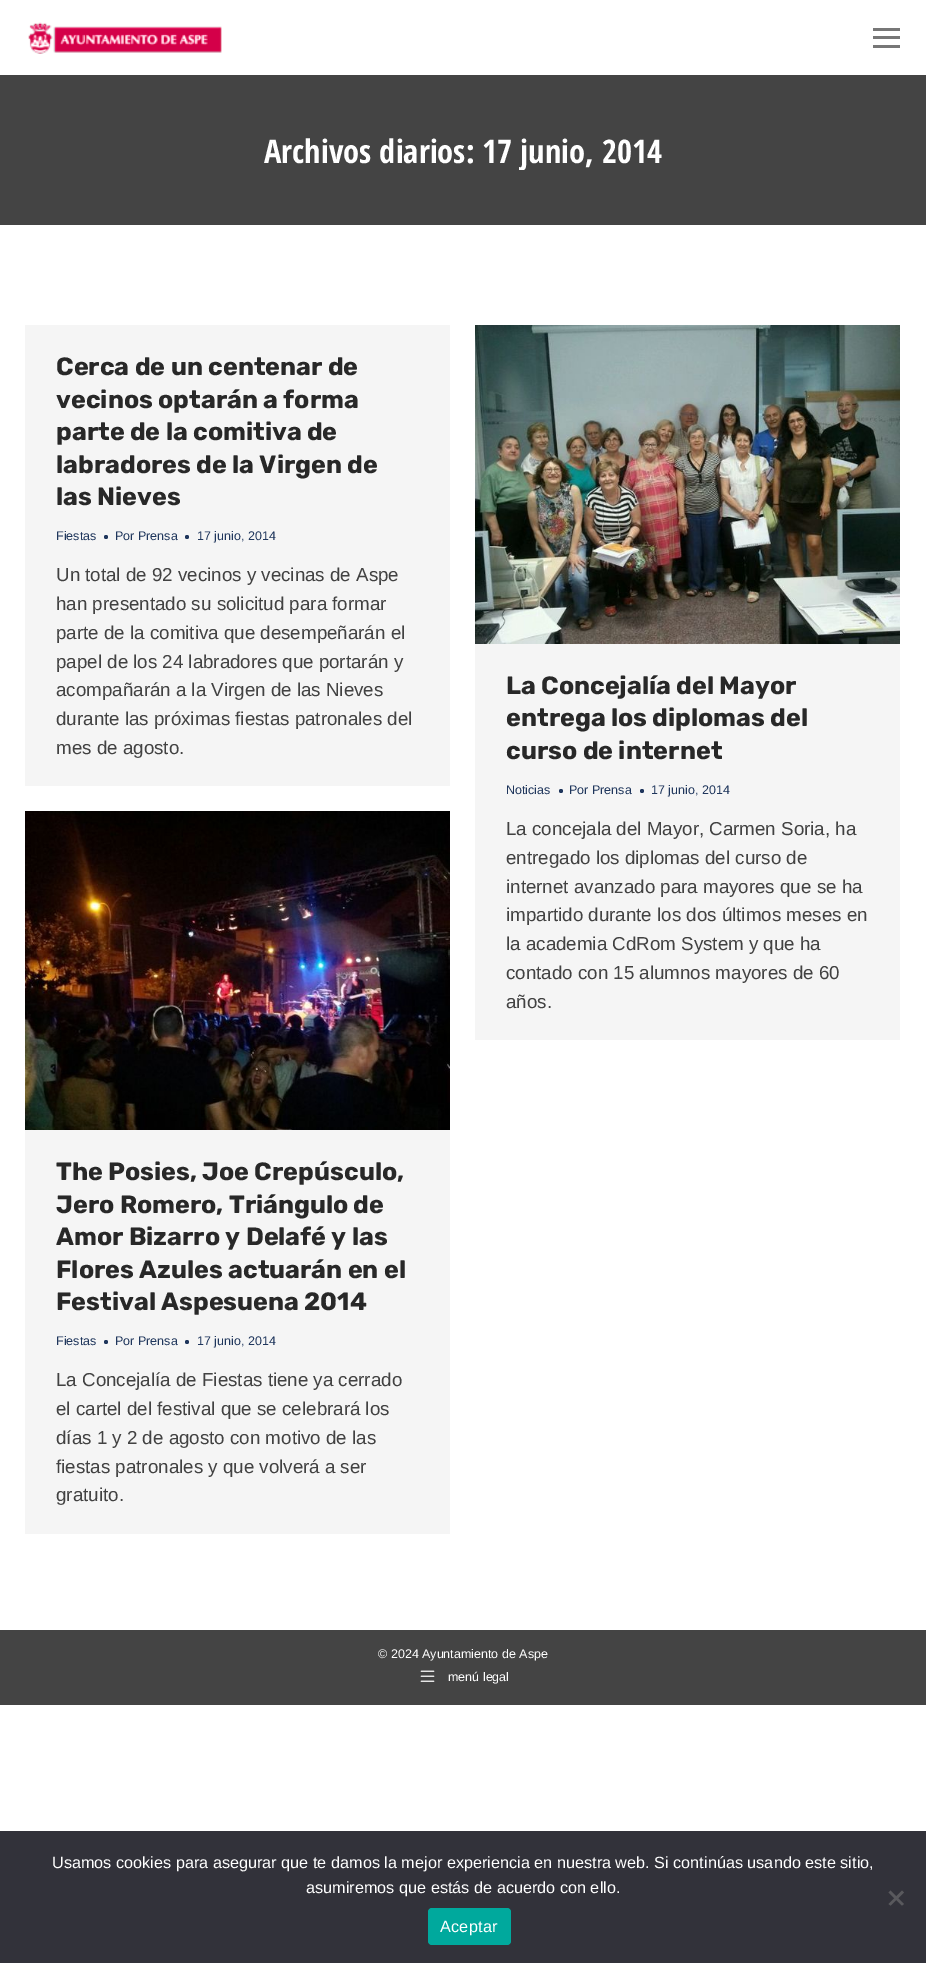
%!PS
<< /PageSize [926 1963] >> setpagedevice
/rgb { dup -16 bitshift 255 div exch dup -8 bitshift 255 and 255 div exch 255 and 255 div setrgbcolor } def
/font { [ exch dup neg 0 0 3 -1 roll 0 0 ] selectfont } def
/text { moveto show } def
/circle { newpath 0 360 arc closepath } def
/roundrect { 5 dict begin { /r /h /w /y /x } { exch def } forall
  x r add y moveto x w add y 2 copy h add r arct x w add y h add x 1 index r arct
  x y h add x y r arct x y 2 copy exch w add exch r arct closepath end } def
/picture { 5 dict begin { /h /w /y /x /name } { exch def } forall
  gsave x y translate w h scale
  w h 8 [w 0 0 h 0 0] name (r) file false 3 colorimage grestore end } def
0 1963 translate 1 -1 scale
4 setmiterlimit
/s1 { /OpenSansCondensed-Bold 32.5 font 16#FFFFFF rgb } def
/s2 { /Rubik-Light 25 font 16#282828 rgb } def
/s3 { /LiberationSans-Regular 12.5 font 16#1F365C rgb } def
/s4 { /LiberationSans-Regular 18.75 font 16#424242 rgb } def
/s5 { /LiberationSans-Regular 12.5 font 16#FFFFFF rgb } def
/s6 { /LiberationSans-Regular 16.25 font 16#FFFFFF rgb } def
16#FFFFFF rgb
0 0 926 1963 rectfill
(pic1.raw) 28 22 194 32 picture
16#777777 rgb
873 28 27 3 rectfill
873 36 27 3 rectfill
873 45 27 3 rectfill
16#444444 rgb
0 75 926 150 rectfill
s1
(Archivos diarios:) 264 163 text
gsave
264 130 399 40 rectclip
(17 junio, 2014) 482 163 text
grestore
16#F5F5F5 rgb
25 325 425 461 rectfill
s2
(Cerca de un centenar de) 56 375 text
(vecinos optarán a forma) 56 408 text
(parte de la comitiva de) 56 440 text
(labradores de la Virgen de) 56 473 text
(las Nieves) 56 505 text
s3
(Fiestas) 56 540 text
106 537 2 circle fill
(Por Prensa) 115 540 text
187 537 2 circle fill
(17 junio, 2014) 197 540 text
s4
(Un total de 92 vecinos y vecinas de Aspe) 56 581 text
(han presentado su solicitud para formar) 56 610 text
(parte de la comitiva que desempeñarán el) 56 639 text
(papel de los 24 labradores que portarán y) 56 668 text
(acompañarán a la Virgen de las Nieves) 56 696 text
(durante las próximas fiestas patronales del) 56 725 text
(mes de agosto.) 56 754 text
16#F5F5F5 rgb
475 644 425 396 rectfill
(pic2.raw) 475 325 425 319 picture
s2
(La Concejalía del Mayor) 506 694 text
(entrega los diplomas del) 506 726 text
(curso de internet) 506 759 text
s3
(Noticias) 506 794 text
561 791 2 circle fill
(Por Prensa) 569 794 text
642 791 2 circle fill
(17 junio, 2014) 651 794 text
s4
(La concejala del Mayor, Carmen Soria, ha) 506 835 text
(entregado los diplomas del curso de) 506 864 text
(internet avanzado para mayores que se ha) 506 893 text
(impartido durante los dos últimos meses en) 506 921 text
(la academia CdRom System y que ha) 506 950 text
(contado con 15 alumnos mayores de 60) 506 979 text
(años.) 506 1008 text
16#F5F5F5 rgb
25 1130 425 404 rectfill
(pic3.raw) 25 811 425 319 picture
s2
(The Posies, Joe Crepúsculo,) 56 1180 text
(Jero Romero, Triángulo de) 56 1213 text
(Amor Bizarro y Delafé y las) 56 1245 text
(Flores Azules actuarán en el) 56 1278 text
(Festival Aspesuena 2014) 56 1310 text
s3
(Fiestas) 56 1345 text
106 1342 2 circle fill
(Por Prensa) 115 1345 text
187 1342 2 circle fill
(17 junio, 2014) 197 1345 text
s4
(La Concejalía de Fiestas tiene ya cerrado) 56 1386 text
(el cartel del festival que se celebrará los) 56 1415 text
(días 1 y 2 de agosto con motivo de las) 56 1444 text
(fiestas patronales y que volverá a ser) 56 1473 text
(gratuito.) 56 1501 text
16#444444 rgb
0 1630 926 75 rectfill
s5
(© 2024 Ayuntamiento de Aspe) 378 1658 text
(pic4.raw) 420 1670 15 12 picture
(menú legal) 448 1681 text
16#32323A rgb
0 1831 926 132 rectfill
s6
(Usamos cookies para asegurar que te damos la mejor experiencia en nuestra web. Si continúas usando este sitio,) 52 1868 text
(asumiremos que estás de acuerdo con ello.) 306 1893 text
16#59595D rgb
902 1890.5 moveto 904 1892.5 lineto 890.5 1905.5 lineto 888.5 1904 lineto closepath fill
888.5 1892.5 moveto 890.5 1890.5 lineto 904 1904 lineto 902 1905.5 lineto closepath fill
16#00A99D rgb
428 1908 83 37 4 roundrect fill
16#FFFFFF rgb
440 1932 moveto 0.25 0 (Aceptar) ashow
showpage
